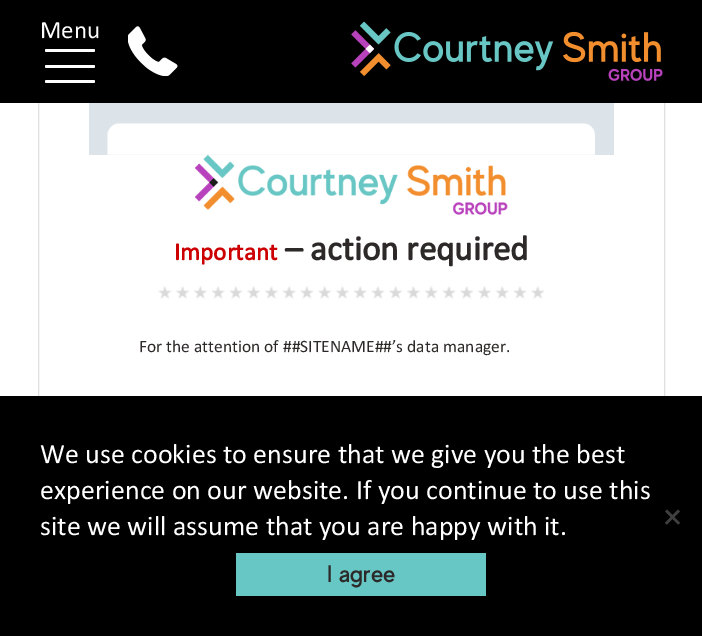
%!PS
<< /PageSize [702 636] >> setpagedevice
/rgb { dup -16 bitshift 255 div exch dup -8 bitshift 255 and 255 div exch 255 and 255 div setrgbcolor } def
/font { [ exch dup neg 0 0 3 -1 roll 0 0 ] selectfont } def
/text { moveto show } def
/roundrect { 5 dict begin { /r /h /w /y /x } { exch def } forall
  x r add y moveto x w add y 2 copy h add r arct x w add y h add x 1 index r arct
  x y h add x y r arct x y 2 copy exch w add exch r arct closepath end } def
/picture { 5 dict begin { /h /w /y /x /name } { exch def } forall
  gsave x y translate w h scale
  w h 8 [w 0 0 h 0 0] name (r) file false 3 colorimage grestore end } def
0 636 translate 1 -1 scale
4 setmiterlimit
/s1 { /Calibri-Regular 25 font 16#FFFFFF rgb } def
/s2 { /Calibri-Bold 25 font 16#CC0000 rgb } def
/s3 { /Calibri-Bold 35 font 16#2D2929 rgb } def
/s4 { /Calibri-Regular 17.5 font 16#2D2929 rgb } def
/s5 { /Calibri-Regular 28 font 16#FFFFFF rgb } def
/s6 { /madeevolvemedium-Medium 24 font 16#2D2929 rgb } def
16#FFFFFF rgb
0 0 702 636 rectfill
16#E0E0E0 rgb
38.5 -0.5 626 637 rectstroke
16#000000 rgb
0 0 702 103 rectfill
s1
(Menu) 40 38 text
45 49 50 3 1.5 roundrect fill
45 65 50 3 1.5 roundrect fill
45 80 50 3 1.5 roundrect fill
(pic1.raw) 128 26 50 50 picture
(pic2.raw) 351 21 312 60 picture
16#DCE4EA rgb
89 103 525 52 rectfill
(pic3.raw) 107 123 488 32 picture
(pic4.raw) 195 154 313 61 picture
s2
(Important) 174 260 text
s3
(– action required) 285 260 text
(pic5.raw) 158 286 386 13 picture
s4
(For the attention of ##SITENAME##’s data manager.) 139 352 text
16#000000 rgb
0 396 702 240 rectfill
s5
(We use cookies to ensure that we give you the best) 40 463 text
(experience on our website. If you continue to use this) 40 499 text
(site we will assume that you are happy with it.) 40 535 text
16#404040 rgb
678 509.5 moveto 680 511.5 lineto 667 524.5 lineto 665 523 lineto closepath fill
665 511.5 moveto 667 509.5 lineto 680 523 lineto 678 524.5 lineto closepath fill
16#66C7C5 rgb
236 553 250 43 rectfill
s6
(I agree) 327 582 text
showpage
